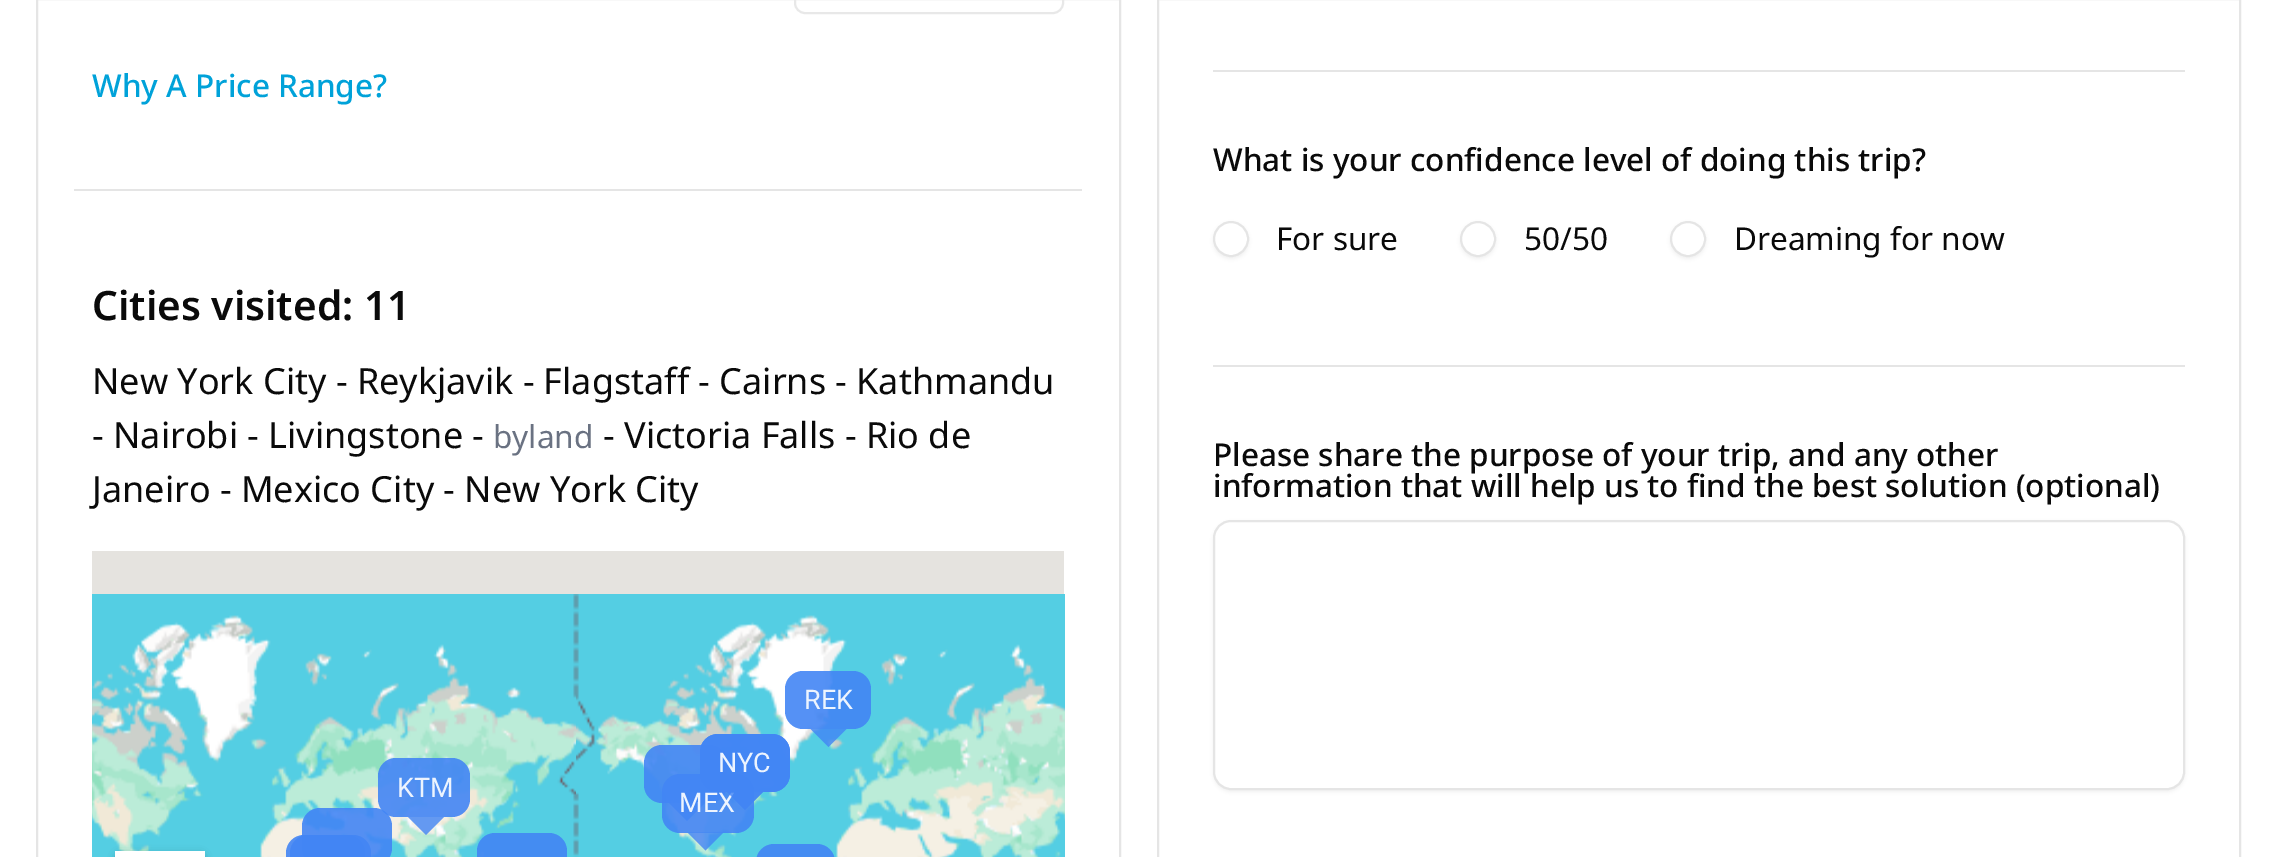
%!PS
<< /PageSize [2275 857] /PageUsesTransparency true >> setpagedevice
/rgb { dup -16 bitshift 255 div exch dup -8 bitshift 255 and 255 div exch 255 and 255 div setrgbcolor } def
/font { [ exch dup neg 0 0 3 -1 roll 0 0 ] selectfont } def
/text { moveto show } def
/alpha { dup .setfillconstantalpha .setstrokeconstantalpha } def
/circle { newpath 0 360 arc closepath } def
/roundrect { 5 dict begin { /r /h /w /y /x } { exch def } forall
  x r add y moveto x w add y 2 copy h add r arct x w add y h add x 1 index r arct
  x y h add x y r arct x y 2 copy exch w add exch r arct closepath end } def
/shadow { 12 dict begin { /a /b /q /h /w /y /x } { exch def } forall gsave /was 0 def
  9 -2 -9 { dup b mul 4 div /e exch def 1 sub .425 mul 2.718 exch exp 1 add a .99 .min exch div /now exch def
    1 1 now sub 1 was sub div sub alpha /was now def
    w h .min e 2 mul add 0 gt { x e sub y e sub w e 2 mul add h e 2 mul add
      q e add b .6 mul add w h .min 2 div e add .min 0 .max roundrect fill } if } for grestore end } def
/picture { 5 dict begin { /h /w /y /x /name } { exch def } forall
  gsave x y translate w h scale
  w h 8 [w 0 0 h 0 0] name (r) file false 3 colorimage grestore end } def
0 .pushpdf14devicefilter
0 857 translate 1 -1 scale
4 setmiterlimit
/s1 { /NotoSans-Medium 31.5 font 16#00A2D9 rgb } def
/s2 { /NotoSans-SemiBold 40.5 font 16#0A0A0A rgb } def
/s3 { /NotoSans-Regular 36 font 16#0A0A0A rgb } def
/s4 { /NotoSans-Regular 31.5 font 16#6A7282 rgb } def
/s5 { /Roboto-Regular 27 font 16#EDF4FE rgb } def
/s6 { /NotoSans-Medium 31.5 font 16#0A0A0A rgb } def
/s7 { /NotoSans-Regular 31.5 font 16#0A0A0A rgb } def
16#FFFFFF rgb
0 0 2275 857 rectfill
16#E5E5E5 rgb
2 setlinewidth
37 -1 1083 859 rectstroke
16#E8E8E8 rgb
795 -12 268 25 10 roundrect stroke
s1
(Why A Price Range?) 92 97 text
16#E5E5E5 rgb
74 189 1008 2 rectfill
s2
(Cities visited: 11) 92 320 text
s3
(New York City - Reykjavik - Flagstaff - Cairns - Kathmandu) 92 394 text
(- Nairobi - Livingstone -) 92 448 text
s4
(byland) 493 448 text
s3
(- Victoria Falls - Rio de) 603 448 text
(Janeiro - Mexico City - New York City) 92 502 text
16#E5E3DF rgb
92 551 972 43 rectfill
(pic1.raw) 92 594 484 263 picture
(pic2.raw) 576 594 489 263 picture
0.9 alpha
16#4285F4 rgb
785 671 86 58 18 roundrect fill
1 alpha
s5
(REK) 804 709 text
0.81 alpha
16#4285F4 rgb
810.5 729 moveto 846.5 729 lineto 828.5 747 lineto closepath fill
0.9 alpha
700 734 90 58 18 roundrect fill
644 745 83 58 18 roundrect fill
0.81 alpha
669 803 moveto 705 803 lineto 687 821 lineto closepath fill
727 792 moveto 763 792 lineto 745 810 lineto closepath fill
0.9 alpha
662 774 92 59 18 roundrect fill
700 734 90 58 18 roundrect fill
1 alpha
s5
(NYC) 718 772 text
(MEX) 679 812 text
0.81 alpha
16#4285F4 rgb
727 792 moveto 763 792 lineto 745 810 lineto closepath fill
0.9 alpha
378 758 92 59 18 roundrect fill
1 alpha
s5
(KTM) 397 797 text
0.81 alpha
16#4285F4 rgb
408 817 moveto 444 817 lineto 426 835 lineto closepath fill
687.5 832.5 moveto 723.5 832.5 lineto 705.5 850.5 lineto closepath fill
0.9 alpha
302 808 90 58 18 roundrect fill
477 833 90 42 18 roundrect fill
290 835 75 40 18 roundrect fill
286 835 85 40 18 roundrect fill
1 alpha
16#448CF2 rgb
756 844 79 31 18 roundrect fill
16#000000 rgb
117 855 86 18 2 4.5 0.3 shadow
16#FFFFFF rgb
115 851 90 6 rectfill
16#E5E5E5 rgb
1158 -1 1082 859 rectstroke
1213 70 972 2 rectfill
s6
(What is your confidence level of doing this trip?) 1213 171 text
16#000000 rgb
1213 223 36 36 18 2 0.05 shadow
16#FFFFFF rgb
1231 239 17 circle gsave fill grestore
16#E5E5E5 rgb
stroke
s7
(For sure) 1276 250 text
16#000000 rgb
1460 223 36 36 18 2 0.05 shadow
16#FFFFFF rgb
1478 239 17 circle gsave fill grestore
16#E5E5E5 rgb
stroke
s7
(50/50) 1524 250 text
16#000000 rgb
1670 223 36 36 18 2 0.05 shadow
16#FFFFFF rgb
1688 239 17 circle gsave fill grestore
16#E5E5E5 rgb
stroke
s7
(Dreaming for now) 1734 250 text
16#E5E5E5 rgb
1213 365 972 2 rectfill
s6
(Please share the purpose of your trip, and any other) 1213 466 text
(information that will help us to find the best solution \(optional\)) 1213 497 text
16#000000 rgb
1213 522 972 270 18 2 0.05 shadow
16#FFFFFF rgb
1214 521 970 268 17 roundrect gsave fill grestore
16#E5E5E5 rgb
stroke
.poppdf14devicefilter showpage
